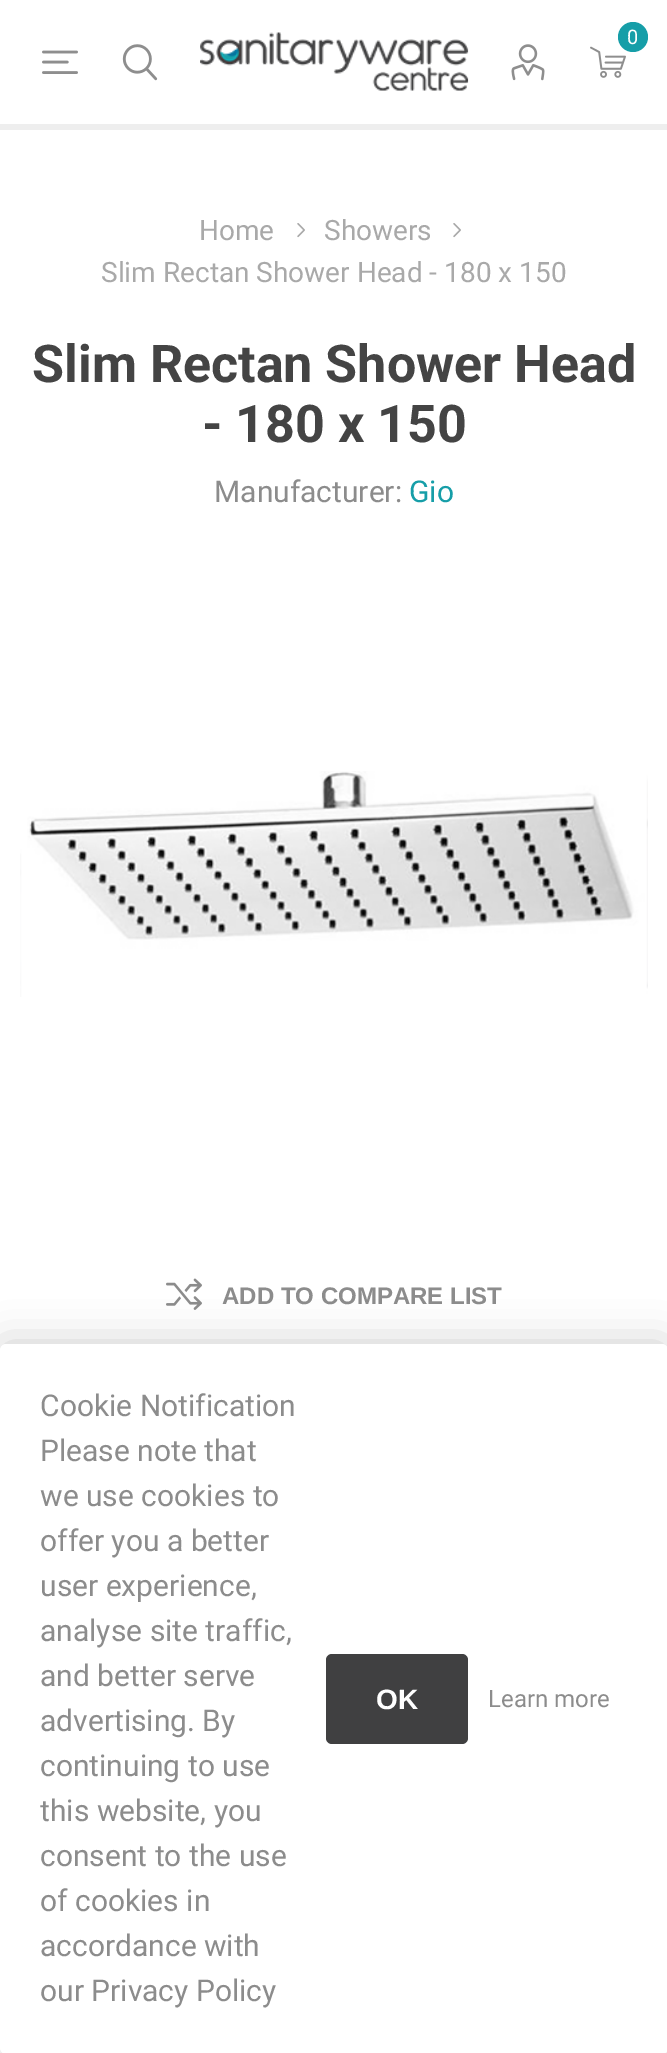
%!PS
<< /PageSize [667 2053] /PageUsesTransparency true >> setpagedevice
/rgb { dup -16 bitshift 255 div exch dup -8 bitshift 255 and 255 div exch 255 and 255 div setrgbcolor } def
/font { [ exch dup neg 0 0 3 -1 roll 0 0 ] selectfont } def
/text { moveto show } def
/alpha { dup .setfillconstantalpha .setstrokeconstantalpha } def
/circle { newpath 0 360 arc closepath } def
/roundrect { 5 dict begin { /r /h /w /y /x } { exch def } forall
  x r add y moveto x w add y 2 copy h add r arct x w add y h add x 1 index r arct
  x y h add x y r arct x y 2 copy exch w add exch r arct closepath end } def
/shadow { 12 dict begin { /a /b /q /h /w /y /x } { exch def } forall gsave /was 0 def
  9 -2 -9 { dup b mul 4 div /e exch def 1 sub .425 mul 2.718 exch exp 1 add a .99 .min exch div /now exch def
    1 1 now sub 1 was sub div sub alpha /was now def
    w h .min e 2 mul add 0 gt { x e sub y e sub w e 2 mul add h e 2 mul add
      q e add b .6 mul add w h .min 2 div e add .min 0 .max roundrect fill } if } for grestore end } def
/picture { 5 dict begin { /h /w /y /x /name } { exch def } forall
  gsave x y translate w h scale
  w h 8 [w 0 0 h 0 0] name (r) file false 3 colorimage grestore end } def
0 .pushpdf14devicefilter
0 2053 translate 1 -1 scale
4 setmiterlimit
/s1 { /Roboto-Regular 20 font 16#FFFFFF rgb } def
/s2 { /Roboto-Regular 28 font 16#A9A9A9 rgb } def
/s3 { /Roboto-Bold 52 font 16#444444 rgb } def
/s4 { /Roboto-Regular 30 font 16#8C8C8C rgb } def
/s5 { /Roboto-Regular 30 font 16#169EA8 rgb } def
/s6 { /LiberationSans-Bold 24 font 16#8C8C8C rgb } def
/s7 { /LiberationSans-Bold 28 font 16#FFFFFF rgb } def
/s8 { /Roboto-Regular 24 font 16#8C8C8C rgb } def
16#FFFFFF rgb
0 0 667 2053 rectfill
16#EEEEEE rgb
0 124 667 6 rectfill
(pic1.raw) 42 50 36 24 picture
(pic2.raw) 122 44 36 37 picture
(pic3.raw) 200 32 269 59 picture
(pic4.raw) 511 44 34 37 picture
(pic5.raw) 590 46 36 32 picture
16#169EA8 rgb
633 37 15 circle fill
s1
(0) 627 44 text
s2
(Home) 199 240 text
(pic6.raw) 297 223 8 15 picture
(Showers) 324 240 text
(pic6.raw) 453 223 8 15 picture
(Slim Rectan Shower Head - 180 x 150) 101 282 text
s3
(Slim Rectan Shower Head) 32 382 text
(- 180 x 150) 202 442 text
s4
(Manufacturer:) 214 502 text
s5
(Gio) 409 502 text
(pic7.raw) 20 771 628 226 picture
(pic8.raw) 166 1278 36 32 picture
s6
(ADD TO COMPARE LIST) 222 1304 text
16#000000 rgb
0 1344 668 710 6 20 0.2 shadow
16#FFFFFF rgb
0 1344 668 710 6 roundrect fill
s4
(Cookie Notification) 40 1416 text
(Please note that) 40 1461 text
(we use cookies to) 40 1506 text
(offer you a better) 40 1551 text
(user experience,) 40 1596 text
(analyse site traffic,) 40 1641 text
(and better serve) 40 1686 text
(advertising. By) 40 1731 text
(continuing to use) 40 1776 text
(this website, you) 40 1821 text
(consent to the use) 40 1866 text
(of cookies in) 40 1911 text
(accordance with) 40 1956 text
(our Privacy Policy) 40 2001 text
16#404041 rgb
326 1654 142 90 6 roundrect fill
s7
(OK) 376 1709 text
s8
(Learn more) 488 1707 text
.poppdf14devicefilter showpage
